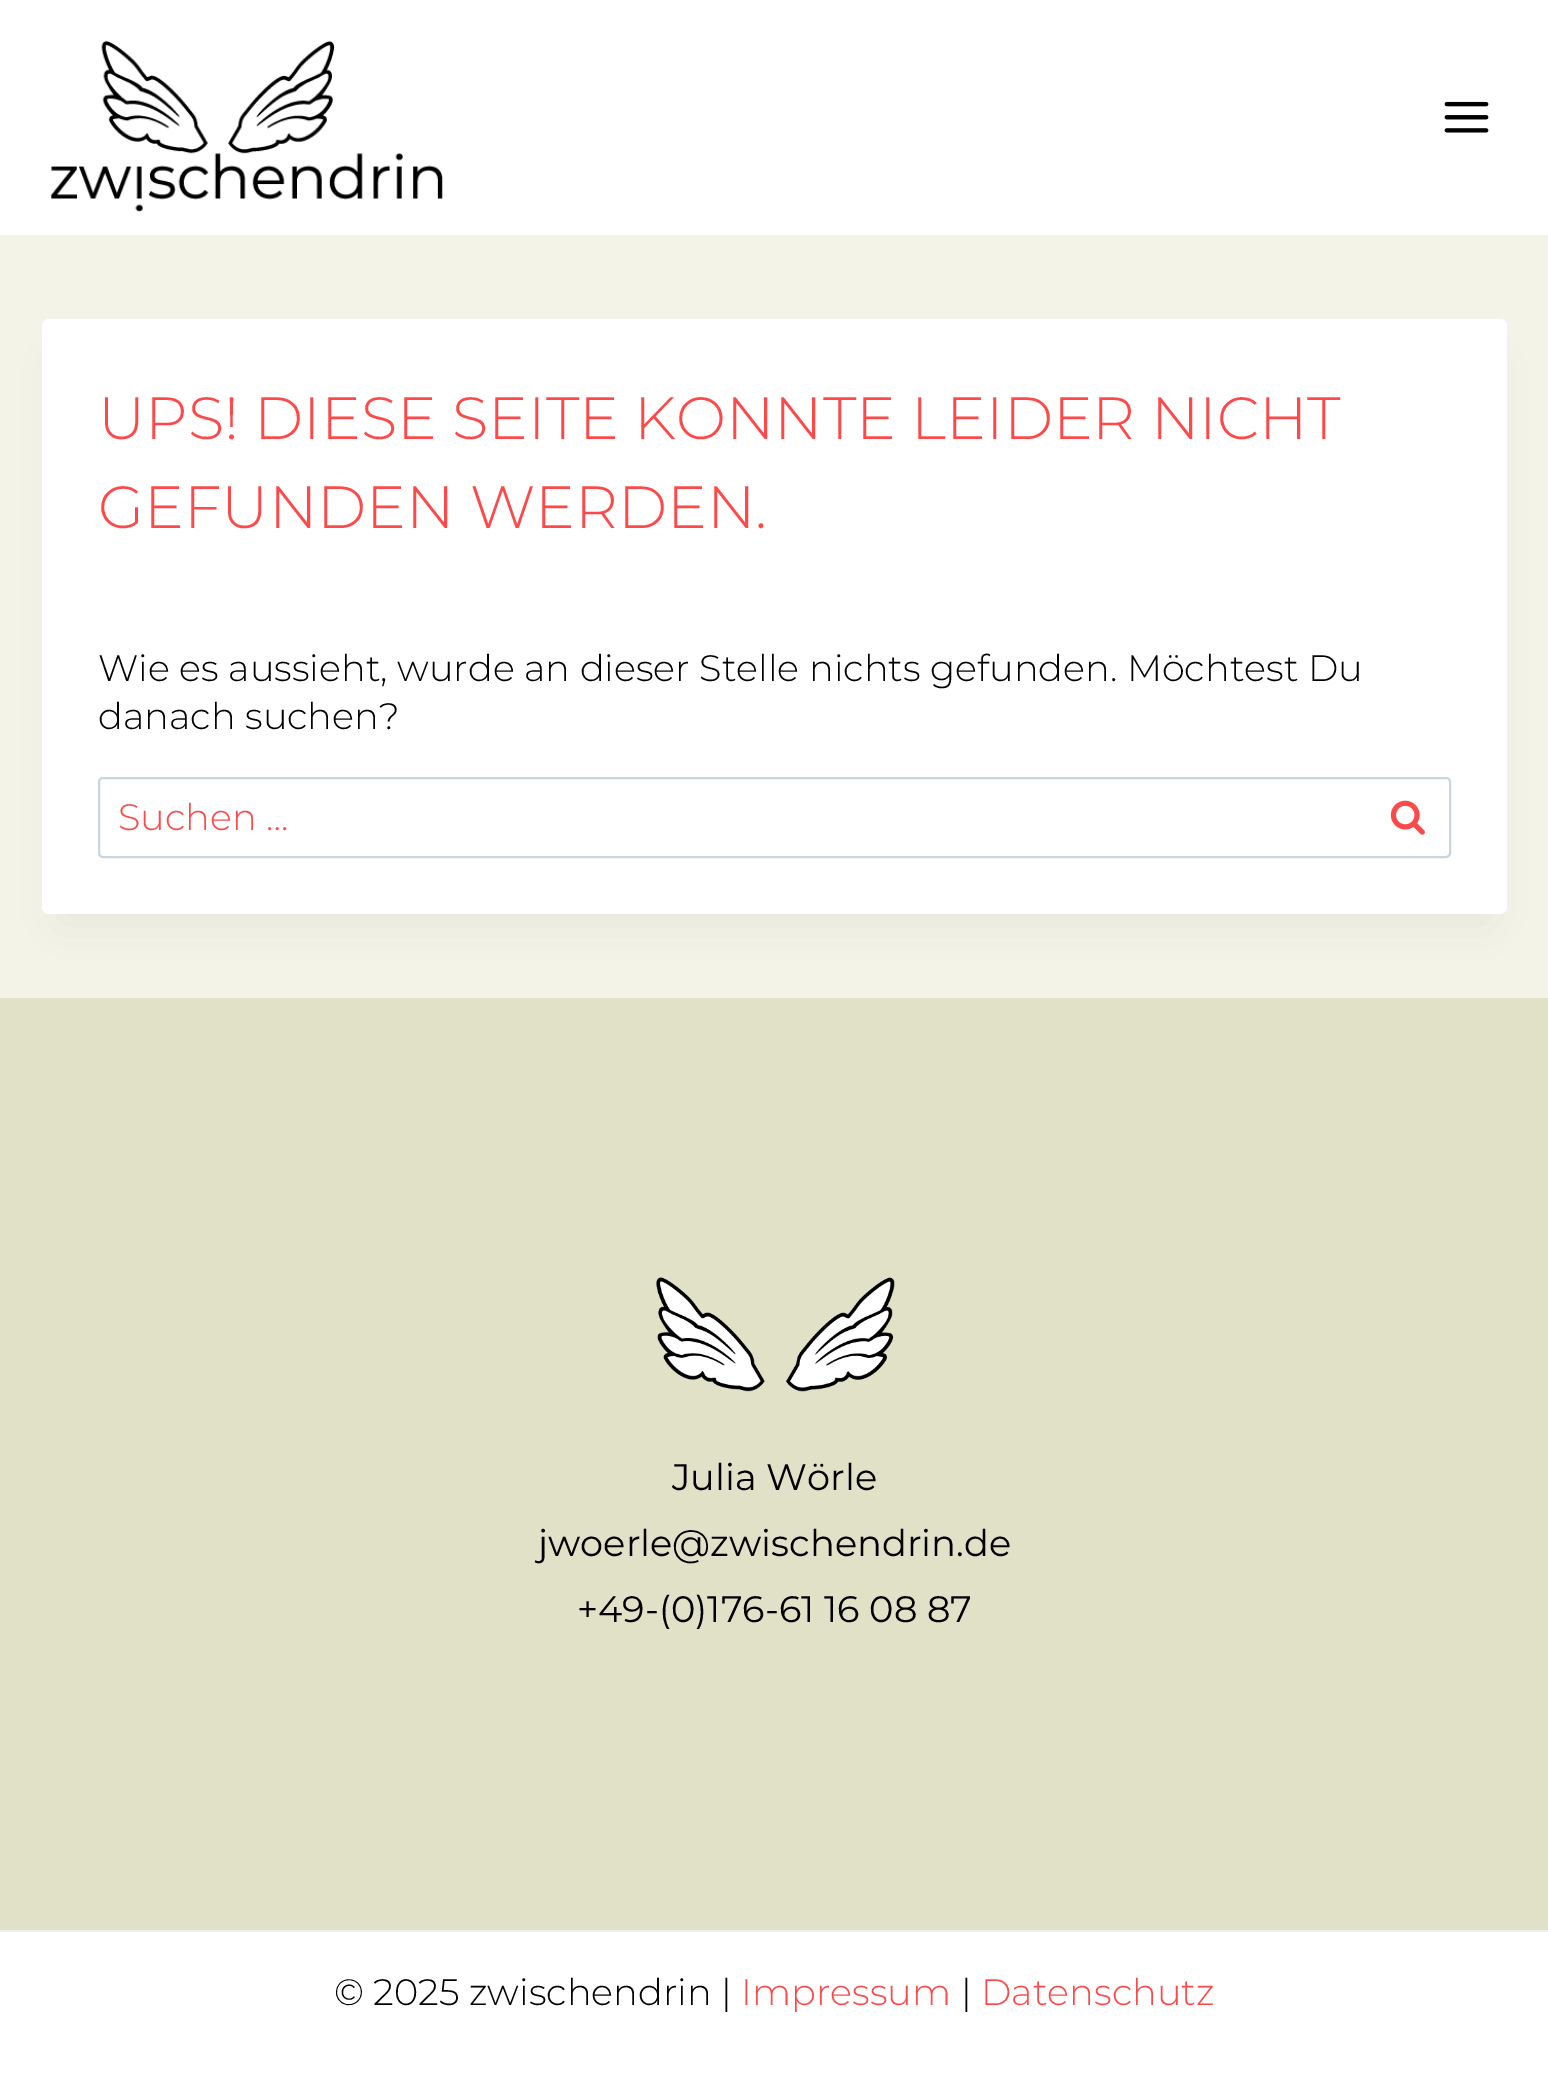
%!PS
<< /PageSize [1548 2090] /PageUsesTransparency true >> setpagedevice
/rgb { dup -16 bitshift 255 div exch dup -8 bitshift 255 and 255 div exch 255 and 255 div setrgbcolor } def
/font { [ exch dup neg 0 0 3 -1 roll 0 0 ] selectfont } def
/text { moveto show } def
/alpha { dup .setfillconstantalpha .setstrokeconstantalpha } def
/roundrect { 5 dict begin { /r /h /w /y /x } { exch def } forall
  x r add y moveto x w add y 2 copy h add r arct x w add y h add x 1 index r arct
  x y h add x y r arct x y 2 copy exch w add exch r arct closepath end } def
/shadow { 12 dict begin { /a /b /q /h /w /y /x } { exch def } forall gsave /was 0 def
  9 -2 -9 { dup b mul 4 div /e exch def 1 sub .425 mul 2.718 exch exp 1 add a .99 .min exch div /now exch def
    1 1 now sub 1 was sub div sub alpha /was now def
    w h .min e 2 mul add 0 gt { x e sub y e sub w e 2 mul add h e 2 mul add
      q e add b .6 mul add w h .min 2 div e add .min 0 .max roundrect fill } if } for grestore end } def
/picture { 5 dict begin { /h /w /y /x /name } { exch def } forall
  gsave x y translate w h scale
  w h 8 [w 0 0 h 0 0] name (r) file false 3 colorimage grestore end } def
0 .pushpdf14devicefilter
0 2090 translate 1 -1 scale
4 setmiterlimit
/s1 { /Montserrat-Light 59.5 font 16#FC4A4A rgb } def
/s2 { /Montserrat-Light 36.75 font 16#000000 rgb } def
/s3 { /Montserrat-Light 36.75 font 16#FC4A4A rgb } def
/s4 { /Montserrat-Regular 36.75 font 16#000000 rgb } def
16#F3F3E8 rgb
0 0 1548 2090 rectfill
16#FFFFFF rgb
0 0 1548 235 rectfill
(pic1.raw) 51 40 392 172 picture
(pic2.raw) 1444 101 45 32 picture
16#000000 rgb
60 362 1429 560 0 22 0.05 shadow
16#FFFFFF rgb
42 319 1465 595 7 roundrect fill
s1
(UPS! DIESE SEITE KONNTE LEIDER NICHT) 98 439 text
(GEFUNDEN WERDEN.) 98 528 text
s2
(Wie es aussieht, wurde an dieser Stelle nichts gefunden. Möchtest Du) 98 681 text
(danach suchen?) 98 729 text
16#CBD5E0 rgb
2 setlinewidth
99 778 1351 79 4 roundrect stroke
s3
(Suchen …) 118 830 text
(pic3.raw) 1390 800 35 35 picture
16#E1E1C8 rgb
0 998 1548 932 rectfill
(pic4.raw) 656 1277 239 115 picture
s4
(Julia Wörle) 672 1490 text
(jwoerle@zwischendrin.de) 538 1556 text
(+49-\(0\)176-61 16 08 87) 577 1622 text
16#FFFFFF rgb
0 1932 1548 158 rectfill
16#EEEEEE rgb
0 1930 1548 2 rectfill
s2
(© 2025 zwischendrin |) 334 2005 text
s3
(Impressum) 741 2005 text
s2
(|) 961 2005 text
s3
(Datenschutz) 981 2005 text
.poppdf14devicefilter showpage
